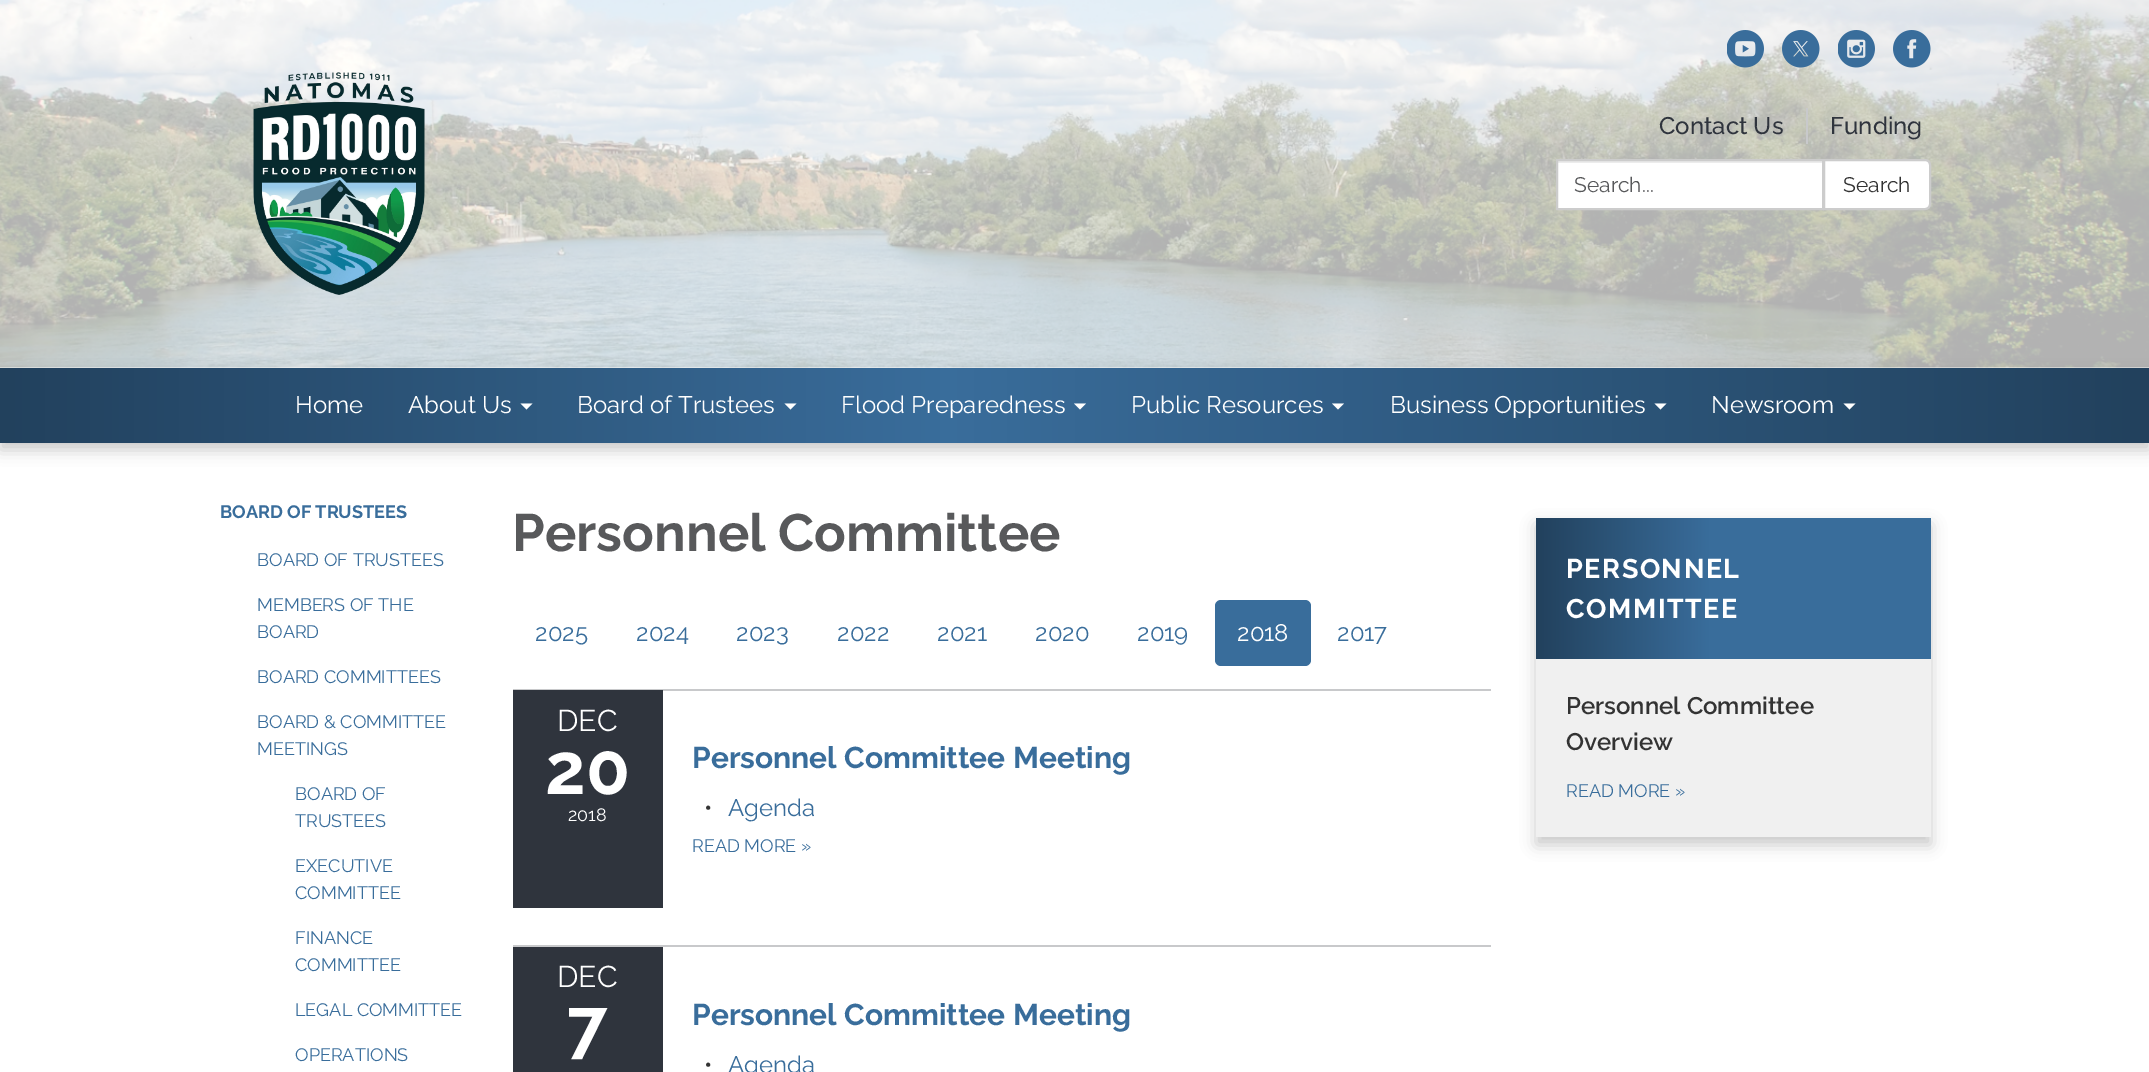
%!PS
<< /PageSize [2149 1072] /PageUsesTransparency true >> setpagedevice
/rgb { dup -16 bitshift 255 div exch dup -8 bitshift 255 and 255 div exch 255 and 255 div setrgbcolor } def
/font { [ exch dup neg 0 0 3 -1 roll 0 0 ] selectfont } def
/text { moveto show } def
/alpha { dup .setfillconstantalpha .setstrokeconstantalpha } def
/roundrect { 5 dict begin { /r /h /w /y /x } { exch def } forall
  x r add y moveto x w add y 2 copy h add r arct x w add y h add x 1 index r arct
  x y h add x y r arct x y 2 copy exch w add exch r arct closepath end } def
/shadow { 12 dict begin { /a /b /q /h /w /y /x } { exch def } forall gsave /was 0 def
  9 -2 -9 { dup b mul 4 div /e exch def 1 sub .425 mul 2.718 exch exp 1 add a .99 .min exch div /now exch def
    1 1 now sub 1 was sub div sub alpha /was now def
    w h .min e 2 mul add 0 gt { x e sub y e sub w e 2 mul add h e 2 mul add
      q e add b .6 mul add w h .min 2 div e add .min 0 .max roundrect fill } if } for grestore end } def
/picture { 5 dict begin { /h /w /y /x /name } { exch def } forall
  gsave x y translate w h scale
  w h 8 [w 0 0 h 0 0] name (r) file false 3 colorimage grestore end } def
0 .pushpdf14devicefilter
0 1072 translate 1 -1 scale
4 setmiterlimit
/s1 { /Raleway-Medium 24 font 16#2F343D rgb } def
/s2 { /Raleway-Regular 21 font 16#58595B rgb } def
/s3 { /Raleway-Regular 21 font 16#333333 rgb } def
/s4 { /Raleway-Regular 24 font 16#FFFFFF rgb } def
/s5 { /Raleway-Bold 18 font 16#396D9B rgb } def
/s6 { /Raleway-Regular 18 font 16#396D9B rgb } def
/s7 { /Raleway-Bold 52.5 font 16#58595B rgb } def
/s8 { /Raleway-Regular 24 font 16#396D9B rgb } def
/s9 { /Raleway-Regular 30 font 16#FFFFFF rgb } def
/s10 { /Raleway-Bold 72 font 16#FFFFFF rgb } def
/s11 { /Raleway-Regular 18 font 16#FFFFFF rgb } def
/s12 { /Raleway-Bold 30 font 16#396D9B rgb } def
/s13 { /Raleway-Regular 24 font 16#333333 rgb } def
/s14 { /Raleway-SemiBold 24 font 16#333333 rgb } def
16#FFFFFF rgb
0 0 2149 1072 rectfill
(pic1.raw) 0 0 2149 368 picture
(pic2.raw) 1727 30 37 38 picture
(pic3.raw) 1782 30 38 38 picture
(pic4.raw) 1838 30 37 38 picture
(pic5.raw) 1893 30 38 38 picture
(pic6.raw) 253 72 172 223 picture
s1
(Contact Us) 1659 134 text
16#C8C9CB rgb
1806 108 2 36 rectfill
s1
(Funding) 1830 134 text
16#FFFFFF rgb
1558 163 264 45 rectfill
16#ECECEC rgb
1557 161 266 2 rectfill
16#CCCCCC rgb
2 setlinewidth
1557 160 266 49 rectstroke
s2
(Search...) 1574 192 text
16#FFFFFF rgb
1824 160 moveto 1925 160 lineto 1928 160 1930 162 1930 165 curveto 1930 204 lineto 1930 207 1928 209 1925 209 curveto 1824 209 lineto closepath gsave fill grestore
16#CCCCCC rgb
stroke
s3
(Search) 1843 192 text
16#000000 rgb
0 375 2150 75 0 7.5 0.21 shadow
gsave 0 368 moveto 2149 368 lineto 2149 443 lineto 0 443 lineto closepath clip newpath
<< /ShadingType 2 /ColorSpace /DeviceRGB /Coords [0 405 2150 405] /Extend [true true] /Function << /FunctionType 3 /Domain [0 1] /Functions [<< /FunctionType 2 /Domain [0 1] /C0 [0.133 0.255 0.365] /C1 [0.224 0.427 0.608] /N 1 >> << /FunctionType 2 /Domain [0 1] /C0 [0.224 0.427 0.608] /C1 [0.133 0.255 0.365] /N 1 >>] /Bounds [0.44] /Encode [0 1 0 1] >> >> shfill grestore
s4
(Home) 295 413 text
(About Us) 408 413 text
520.5 403.5 moveto 532.5 403.5 lineto 526.5 409.5 lineto closepath fill
(Board of Trustees) 577 413 text
784.5 403.5 moveto 796.5 403.5 lineto 790.5 409.5 lineto closepath fill
(Flood Preparedness) 841 413 text
1074 403.5 moveto 1086 403.5 lineto 1080 409.5 lineto closepath fill
(Public Resources) 1131 413 text
1332 403.5 moveto 1344 403.5 lineto 1338 409.5 lineto closepath fill
(Business Opportunities) 1390 413 text
1654.5 403.5 moveto 1666.5 403.5 lineto 1660.5 409.5 lineto closepath fill
(Newsroom) 1711 413 text
1843.5 403.5 moveto 1855.5 403.5 lineto 1849.5 409.5 lineto closepath fill
s5
(BOARD OF TRUSTEES) 220 518 text
s6
(BOARD OF TRUSTEES) 257 566 text
(MEMBERS OF THE) 257 611 text
(BOARD) 257 638 text
(BOARD COMMITTEES) 257 683 text
(BOARD & COMMITTEE) 257 728 text
(MEETINGS) 257 755 text
(BOARD OF) 295 800 text
(TRUSTEES) 295 827 text
(EXECUTIVE) 295 872 text
(COMMITTEE) 295 899 text
(FINANCE) 295 944 text
(COMMITTEE) 295 971 text
(LEGAL COMMITTEE) 295 1016 text
(OPERATIONS) 295 1061 text
s7
(Personnel Committee) 512 551 text
s8
(2025) 535 641 text
(2024) 636 641 text
(2023) 736 641 text
(2022) 837 641 text
(2021) 937 641 text
(2020) 1035 641 text
(2019) 1137 641 text
1215 600 96 66 6 roundrect fill
s4
(2018) 1237 641 text
s8
(2017) 1337 641 text
16#C8C9CB rgb
513 689 978 2 rectfill
16#2F343D rgb
513 690 150 218 rectfill
s9
(DEC) 557 731 text
s10
(20) 545 794 text
s11
(2018) 568 821 text
s12
(Personnel Committee Meeting) 692 768 text
s13
(•) 704 816 text
s8
(Agenda) 728 816 text
s6
(READ MORE ») 692 852 text
16#C8C9CB rgb
513 945 978 2 rectfill
16#2F343D rgb
513 947 150 125 rectfill
s9
(DEC) 557 987 text
s10
(7) 567 1050 text
s12
(Personnel Committee Meeting) 692 1025 text
s13
(•) 704 1073 text
s8
(Agenda) 728 1073 text
16#000000 rgb
1536 525 395 320 0 7.5 0.21 shadow
16#F0F0F0 rgb
1536 659 395 178 rectfill
gsave 1536 518 moveto 1931 518 lineto 1931 659 lineto 1536 659 lineto closepath clip newpath
<< /ShadingType 2 /ColorSpace /DeviceRGB /Coords [1536 588 1931 588] /Extend [true true] /Function << /FunctionType 3 /Domain [0 1] /Functions [<< /FunctionType 2 /Domain [0 1] /C0 [0.133 0.255 0.365] /C1 [0.224 0.427 0.608] /N 1 >> << /FunctionType 2 /Domain [0 1] /C0 [0.224 0.427 0.608] /C1 [0.224 0.427 0.608] /N 1 >>] /Bounds [0.44] /Encode [0 1 0 1] >> >> shfill grestore
/Raleway-Bold 27 font
16#FFFFFF rgb
1566 578 moveto 1.5 0 (PERSONNEL) ashow
1566 618 moveto 1.5 0 (COMMITTEE) ashow
s14
(Personnel Committee) 1566 714 text
(Overview) 1566 750 text
s6
(READ MORE ») 1566 797 text
.poppdf14devicefilter showpage
